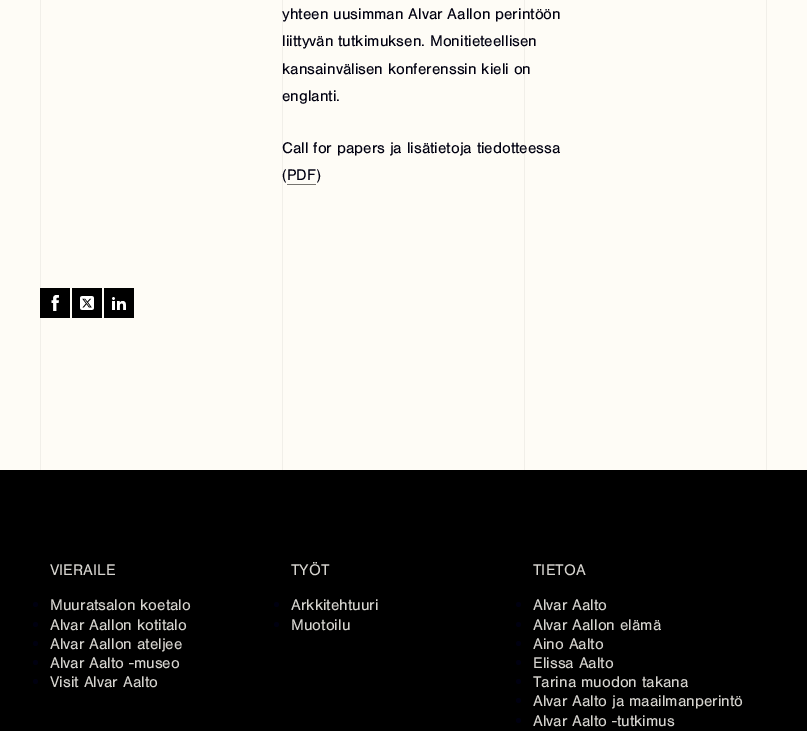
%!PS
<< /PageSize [807 731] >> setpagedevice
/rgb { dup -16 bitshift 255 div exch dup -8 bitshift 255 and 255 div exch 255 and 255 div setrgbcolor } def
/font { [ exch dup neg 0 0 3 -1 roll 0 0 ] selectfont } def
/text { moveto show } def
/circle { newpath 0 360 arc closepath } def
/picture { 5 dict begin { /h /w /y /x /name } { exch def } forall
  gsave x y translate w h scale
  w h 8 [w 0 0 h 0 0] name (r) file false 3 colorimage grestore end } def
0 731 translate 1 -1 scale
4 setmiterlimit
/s1 { /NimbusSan-Regular 16 font 16#000010 rgb } def
/s2 { /NimbusSan-Regular 16 font 16#D6D4CF rgb } def
16#FEFCF6 rgb
0 0 807 731 rectfill
16#F1EFE9 rgb
40 0 1 470 rectfill
282 0 1 470 rectfill
524 0 1 470 rectfill
766 0 1 470 rectfill
s1
(yhteen uusimman Alvar Aallon perintöön) 282 19 text
(liittyvän tutkimuksen. Monitieteellisen) 282 46 text
(kansainvälisen konferenssin kieli on) 282 74 text
(englanti.) 282 101 text
(Call for papers ja lisätietoja tiedotteessa) 282 153 text
(\(PDF\)) 282 180 text
16#76746F rgb
287 184 29 1 rectfill
16#000000 rgb
40 288 30 30 rectfill
(pic1.raw) 51 295 8 16 picture
72 288 30 30 rectfill
(pic2.raw) 80 296 14 14 picture
104 288 30 30 rectfill
(pic3.raw) 112 297 14 13 picture
0 470 807 261 rectfill
s2
(VIERAILE) 50 575 text
16#000010 rgb
35.5 604.5 2.5 circle fill
s2
(Muuratsalon koetalo) 50 610 text
16#000010 rgb
35.5 624.5 2.5 circle fill
s2
(Alvar Aallon kotitalo) 50 630 text
16#000010 rgb
35.5 643.5 2.5 circle fill
s2
(Alvar Aallon ateljee) 50 649 text
16#000010 rgb
35.5 662.5 2.5 circle fill
s2
(Alvar Aalto -museo) 50 668 text
16#000010 rgb
35.5 681.5 2.5 circle fill
s2
(Visit Alvar Aalto) 50 687 text
(TYÖT) 291 575 text
16#000010 rgb
276.5 604.5 2.5 circle fill
s2
(Arkkitehtuuri) 291 610 text
16#000010 rgb
276.5 624.5 2.5 circle fill
s2
(Muotoilu) 291 630 text
(TIETOA) 533 575 text
16#000010 rgb
518.5 604.5 2.5 circle fill
s2
(Alvar Aalto) 533 610 text
16#000010 rgb
518.5 624.5 2.5 circle fill
s2
(Alvar Aallon elämä) 533 630 text
16#000010 rgb
518.5 643.5 2.5 circle fill
s2
(Aino Aalto) 533 649 text
16#000010 rgb
518.5 662.5 2.5 circle fill
s2
(Elissa Aalto) 533 668 text
16#000010 rgb
518.5 681.5 2.5 circle fill
s2
(Tarina muodon takana) 533 687 text
16#000010 rgb
518.5 700.5 2.5 circle fill
s2
(Alvar Aalto ja maailmanperintö) 533 706 text
16#000010 rgb
518.5 720.5 2.5 circle fill
s2
(Alvar Aalto -tutkimus) 533 726 text
showpage
